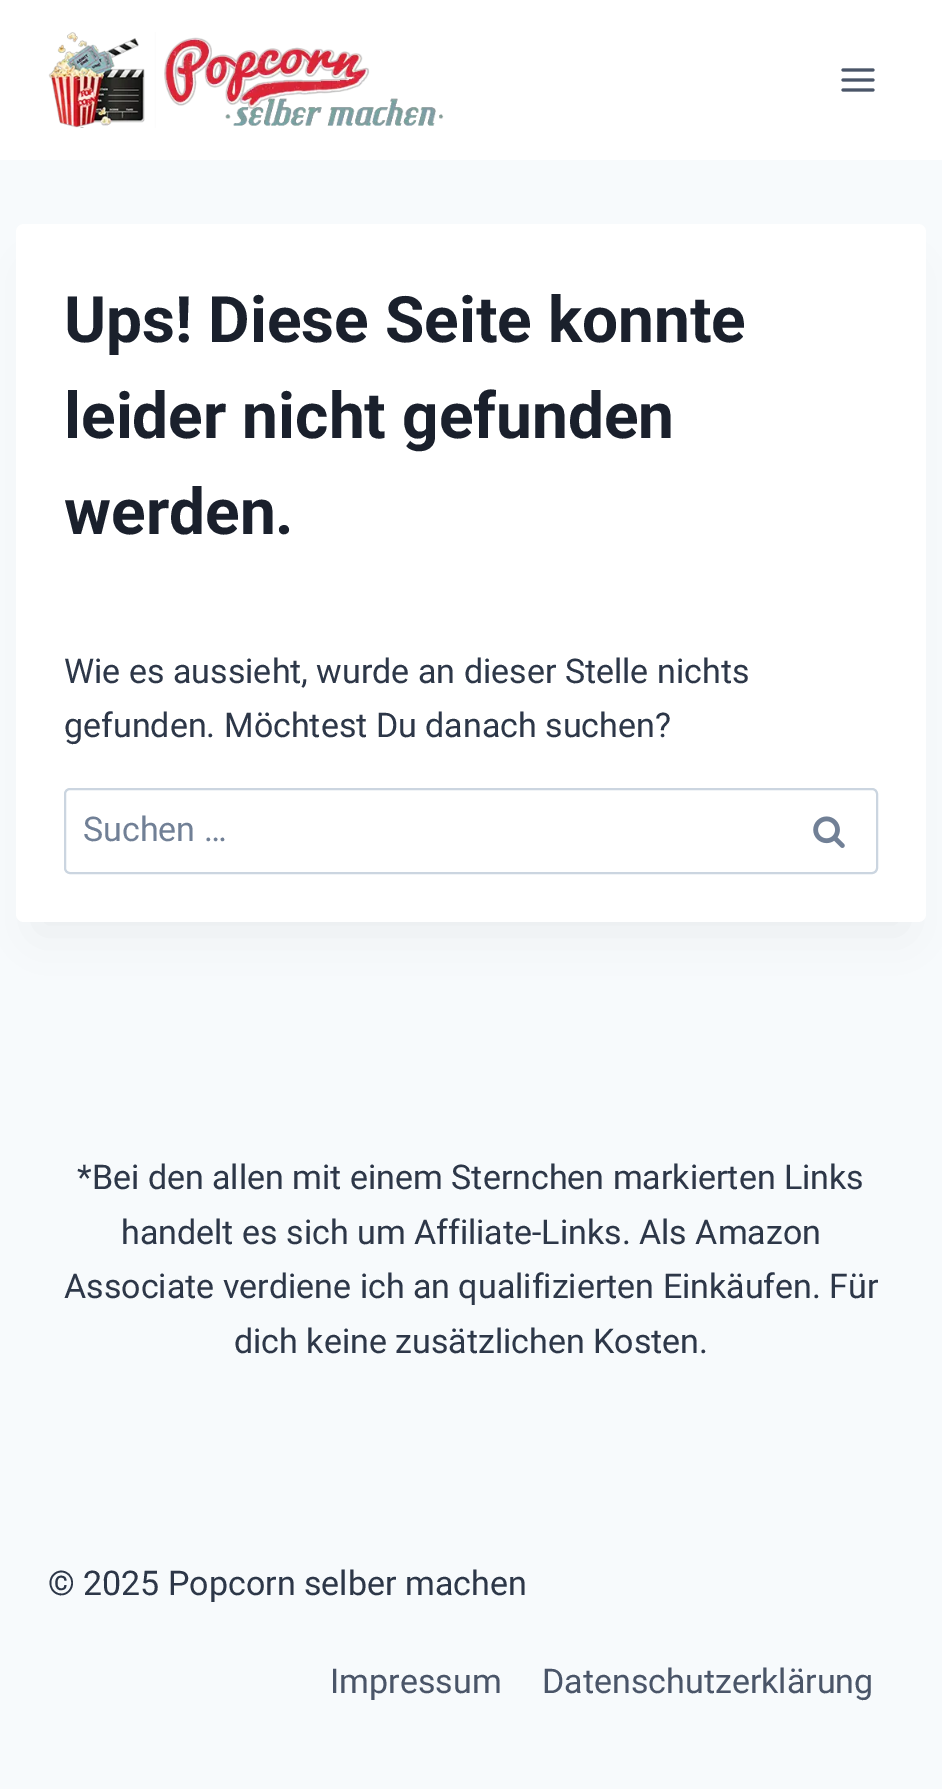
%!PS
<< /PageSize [942 1789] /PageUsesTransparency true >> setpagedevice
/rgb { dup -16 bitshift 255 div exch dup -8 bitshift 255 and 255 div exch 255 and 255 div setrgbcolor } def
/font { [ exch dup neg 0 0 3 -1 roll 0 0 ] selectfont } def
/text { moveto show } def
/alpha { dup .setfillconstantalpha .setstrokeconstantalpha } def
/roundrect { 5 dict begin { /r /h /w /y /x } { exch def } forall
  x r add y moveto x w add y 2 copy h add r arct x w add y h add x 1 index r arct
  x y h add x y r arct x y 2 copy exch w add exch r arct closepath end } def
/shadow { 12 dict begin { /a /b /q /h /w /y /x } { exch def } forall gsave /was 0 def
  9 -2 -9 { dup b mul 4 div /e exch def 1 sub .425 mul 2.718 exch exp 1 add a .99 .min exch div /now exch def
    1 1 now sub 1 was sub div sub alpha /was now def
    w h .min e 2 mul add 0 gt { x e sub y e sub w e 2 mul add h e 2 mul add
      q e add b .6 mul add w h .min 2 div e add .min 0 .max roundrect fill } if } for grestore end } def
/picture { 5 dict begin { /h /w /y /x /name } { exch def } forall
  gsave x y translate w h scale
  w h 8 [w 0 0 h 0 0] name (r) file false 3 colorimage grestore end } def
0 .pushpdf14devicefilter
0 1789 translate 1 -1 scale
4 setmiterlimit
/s1 { /Roboto-Bold 64 font 16#1A202C rgb } def
/s2 { /Roboto-Regular 34 font 16#2D3748 rgb } def
/s3 { /Roboto-Regular 34 font 16#718096 rgb } def
/s4 { /Roboto-Regular 34 font 16#4A5568 rgb } def
16#F7FAFC rgb
0 0 942 1789 rectfill
16#FFFFFF rgb
0 0 942 160 rectfill
(pic1.raw) 48 32 396 96 picture
(pic2.raw) 841 68 34 24 picture
16#000000 rgb
36 274 870 658 0 25 0.05 shadow
16#FFFFFF rgb
16 224 910 698 8 roundrect fill
s1
(Ups! Diese Seite konnte) 64 342 text
(leider nicht gefunden) 64 438 text
(werden.) 64 534 text
s2
(Wie es aussieht, wurde an dieser Stelle nichts) 64 683 text
(gefunden. Möchtest Du danach suchen?) 64 737 text
16#CBD5E0 rgb
2 setlinewidth
65 789 812 84 5 roundrect stroke
s3
(Suchen …) 83 841 text
(pic3.raw) 813 816 32 32 picture
s2
(*Bei den allen mit einem Sternchen markierten Links) 77 1189 text
(handelt es sich um Affiliate-Links. Als Amazon) 121 1244 text
(Associate verdiene ich an qualifizierten Einkäufen. Für) 64 1298 text
(dich keine zusätzlichen Kosten.) 234 1353 text
(© 2025 Popcorn selber machen) 48 1595 text
s4
(Impressum) 330 1693 text
(Datenschutzerklärung) 542 1693 text
.poppdf14devicefilter showpage
